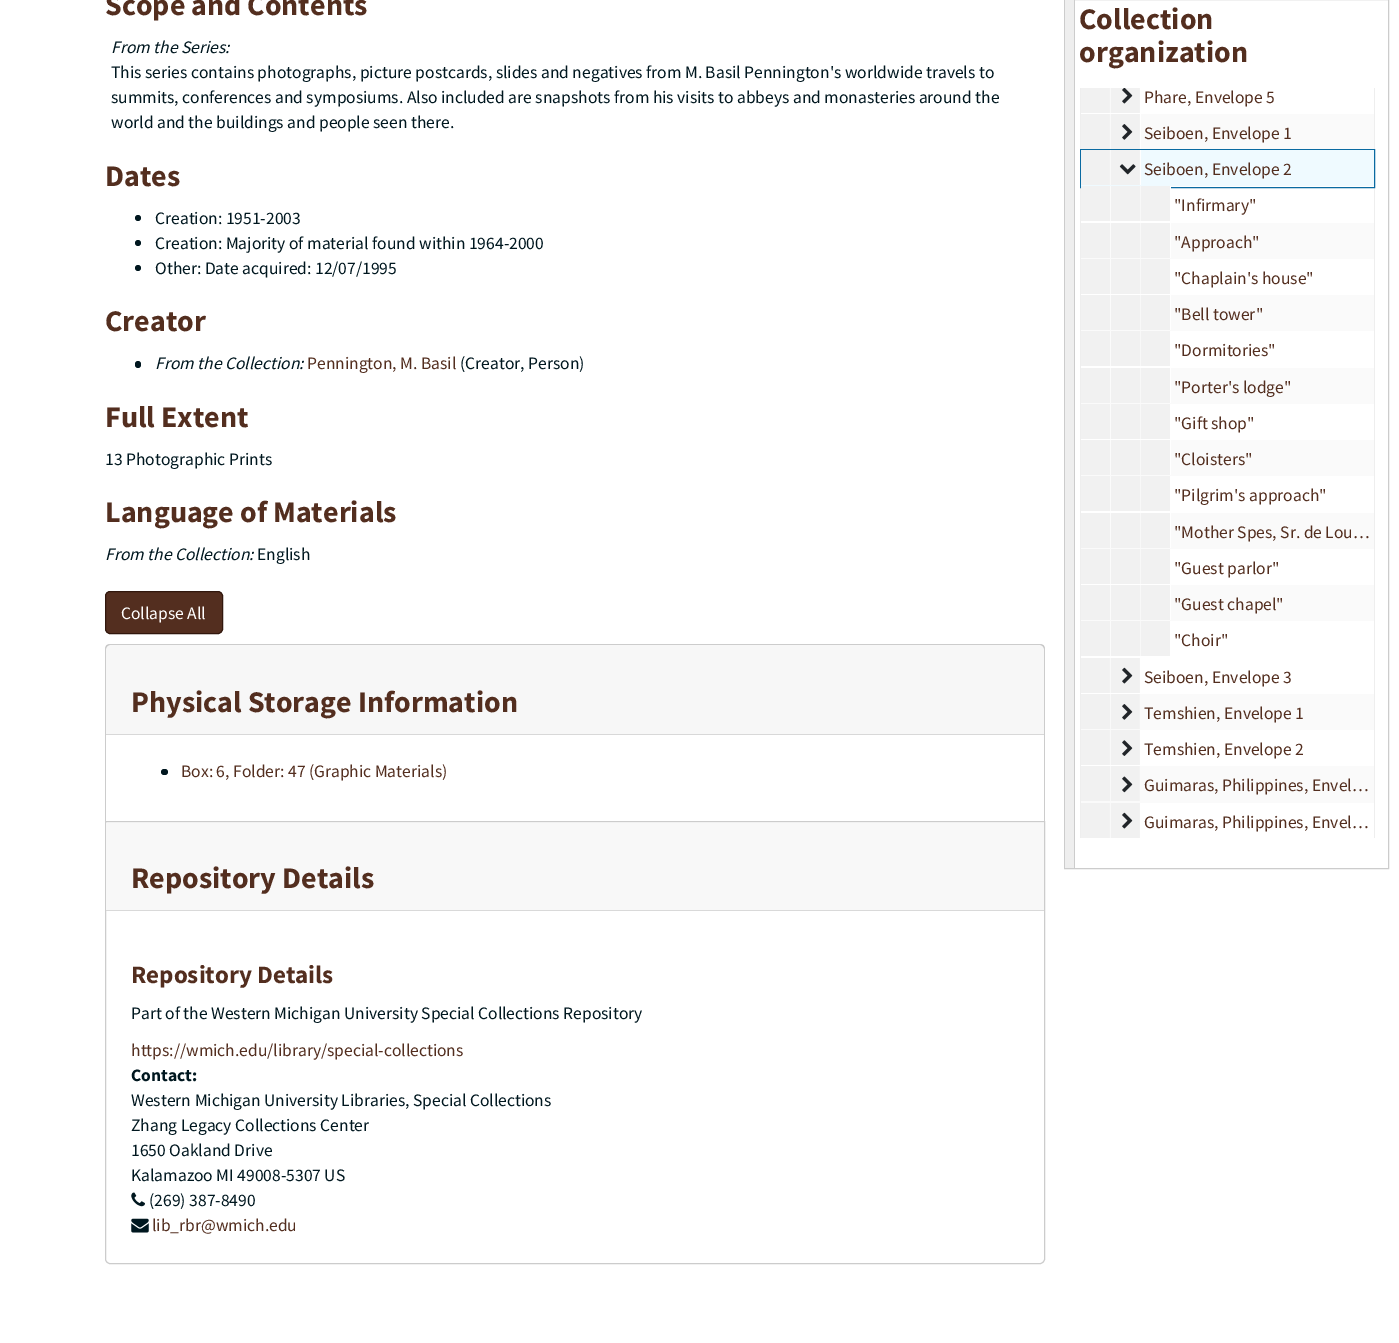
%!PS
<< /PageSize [1399 1343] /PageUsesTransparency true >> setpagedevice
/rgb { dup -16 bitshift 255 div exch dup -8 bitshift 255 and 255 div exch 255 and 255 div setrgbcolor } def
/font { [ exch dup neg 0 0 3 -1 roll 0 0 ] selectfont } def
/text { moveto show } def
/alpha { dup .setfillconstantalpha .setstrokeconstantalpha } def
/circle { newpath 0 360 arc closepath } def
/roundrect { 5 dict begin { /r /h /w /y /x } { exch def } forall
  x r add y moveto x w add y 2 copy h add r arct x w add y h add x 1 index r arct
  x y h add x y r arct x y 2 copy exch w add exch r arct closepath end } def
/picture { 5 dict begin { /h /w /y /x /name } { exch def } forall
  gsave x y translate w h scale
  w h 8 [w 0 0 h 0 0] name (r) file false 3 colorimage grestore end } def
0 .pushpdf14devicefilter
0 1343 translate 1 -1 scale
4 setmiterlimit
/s1 { /SourceSansPro-Bold 30 font 16#532E1F rgb } def
/s2 { /SourceSansPro-Italic 17.5 font 16#00171F rgb } def
/s3 { /SourceSansPro-Regular 17.5 font 16#00171F rgb } def
/s4 { /SourceSansPro-Regular 17.5 font 16#532E1F rgb } def
/s5 { /SourceSansPro-Regular 17.5 font 16#FFFFFF rgb } def
/s6 { /SourceSansPro-Bold 25 font 16#532E1F rgb } def
/s7 { /SourceSansPro-Bold 17.5 font 16#00171F rgb } def
16#FFFFFF rgb
0 0 1399 1343 rectfill
s1
(Scope and Contents) 105 15 text
s2
(From the Series:) 111 53 text
s3
(This series contains photographs, picture postcards, slides and negatives from M. Basil Pennington's worldwide travels to) 111 78 text
(summits, conferences and symposiums. Also included are snapshots from his visits to abbeys and monasteries around the) 111 103 text
(world and the buildings and people seen there.) 111 128 text
s1
(Dates) 105 186 text
16#00171F rgb
138 218 3 circle fill
s3
(Creation: 1951-2003) 155 224 text
138 243 3 circle fill
(Creation: Majority of material found within 1964-2000) 155 249 text
138 268 3 circle fill
(Other: Date acquired: 12/07/1995) 155 274 text
s1
(Creator) 105 331 text
16#00171F rgb
135 361 6 7 3 roundrect fill
s2
(From the Collection:) 155 369 text
s4
(Pennington, M. Basil) 307 369 text
s3
(\(Creator, Person\)) 460 369 text
s1
(Full Extent) 105 427 text
s3
(13 Photographic Prints) 105 465 text
s1
(Language of Materials) 105 522 text
s2
(From the Collection:) 105 560 text
s3
(English) 257 560 text
16#532E1F rgb
105.5 591.5 117 42 4.5 roundrect gsave fill grestore
16#31170D rgb
stroke
s5
(Collapse All) 121 619 text
16#CCCCCC rgb
110 644 moveto 1040 644 lineto 1043 644 1045 646 1045 649 curveto 1045 821 lineto 105 821 lineto 105 649 lineto 105 646 107 644 110 644 curveto closepath 110 645 moveto 1040 645 lineto 1042 645 1044 647 1044 649 curveto 1044 821 lineto 106 821 lineto 106 649 lineto 106 647 108 645 110 645 curveto closepath eofill
0.03 alpha
16#000000 rgb
106 645 938 89 rectfill
1 alpha
16#D8D8D8 rgb
106 734 938 1 rectfill
s1
(Physical Storage Information) 131 712 text
16#00171F rgb
161 769 7 6 3 roundrect fill
s4
(Box: 6, Folder: 47 \(Graphic Materials\)) 181 777 text
16#CCCCCC rgb
105.5 821.5 moveto 1044.5 821.5 lineto 1044.5 1259 lineto 1044.5 1261.5 1042.5 1263.5 1040 1263.5 curveto 110 1263.5 lineto 107.5 1263.5 105.5 1261.5 105.5 1259 curveto closepath stroke
16#F8F8F8 rgb
106 823 938 87 rectfill
16#D9D9D9 rgb
106 910 938 1 rectfill
s1
(Repository Details) 131 888 text
s6
(Repository Details) 131 983 text
s3
(Part of the Western Michigan University Special Collections Repository) 131 1019 text
s4
(https://wmich.edu/library/special-collections) 131 1056 text
s7
(Contact:) 131 1081 text
s3
(Western Michigan University Libraries, Special Collections) 131 1106 text
(Zhang Legacy Collections Center) 131 1131 text
(1650 Oakland Drive) 131 1156 text
(Kalamazoo MI 49008-5307 US) 131 1181 text
(pic1.raw) 131 1192 14 15 picture
(\(269\) 387-8490) 149 1206 text
(pic2.raw) 131 1218 18 15 picture
s4
(lib_rbr@wmich.edu) 152 1231 text
16#CCCCCC rgb
1064.5 -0.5 324 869 rectstroke
16#EEEEEE rgb
1065 0 9 868 rectfill
16#CCCCCC rgb
1074 0 1 868 rectfill
s1
(Collection) 1079 29 text
(organization) 1079 62 text
16#EEEEEE rgb
1080 88 295 750 rectfill
16#FFFFFF rgb
1081 88 293 26 rectfill
gsave 1081 88 moveto 1141 88 lineto 1141 113 lineto 1081 113 lineto closepath clip newpath
<< /ShadingType 2 /ColorSpace /DeviceRGB /Coords [1081 95 1141 95] /Extend [true true] /Function << /FunctionType 3 /Domain [0 1] /Functions [<< /FunctionType 2 /Domain [0 1] /C0 [0.945 0.945 0.945] /C1 [0.945 0.945 0.945] /N 1 >> << /FunctionType 2 /Domain [0 1] /C0 [0.945 0.945 0.945] /C1 [1 1 1] /N 1 >> << /FunctionType 2 /Domain [0 1] /C0 [0.945 0.945 0.945] /C1 [0.945 0.945 0.945] /N 1 >> << /FunctionType 2 /Domain [0 1] /C0 [0.945 0.945 0.945] /C1 [1 1 1] /N 1 >>] /Bounds [0.48 0.5 0.98] /Encode [0 1 0 1 0 1 0 1] >> >> shfill grestore
(pic3.raw) 1122 88 11 16 picture
s4
(Phare, Envelope 5) 1144 103 text
16#FAFAFA rgb
1141 114 233 35 rectfill
gsave 1081 114 moveto 1141 114 lineto 1141 149 lineto 1081 149 lineto closepath clip newpath
<< /ShadingType 2 /ColorSpace /DeviceRGB /Coords [1081 131 1141 131] /Extend [true true] /Function << /FunctionType 3 /Domain [0 1] /Functions [<< /FunctionType 2 /Domain [0 1] /C0 [0.945 0.945 0.945] /C1 [0.945 0.945 0.945] /N 1 >> << /FunctionType 2 /Domain [0 1] /C0 [0.945 0.945 0.945] /C1 [1 1 1] /N 1 >> << /FunctionType 2 /Domain [0 1] /C0 [0.945 0.945 0.945] /C1 [0.945 0.945 0.945] /N 1 >> << /FunctionType 2 /Domain [0 1] /C0 [0.945 0.945 0.945] /C1 [1 1 1] /N 1 >>] /Bounds [0.48 0.5 0.98] /Encode [0 1 0 1 0 1 0 1] >> >> shfill grestore
(pic4.raw) 1122 124 11 16 picture
s4
(Seiboen, Envelope 1) 1144 139 text
16#FFFFFF rgb
1081 186 293 37 rectfill
16#0A6AA1 rgb
1080.5 149.5 294 38 rectstroke
16#EFFAFF rgb
1081 150 293 36 rectfill
gsave 1081 150 moveto 1141 150 lineto 1141 185 lineto 1081 185 lineto closepath clip newpath
<< /ShadingType 2 /ColorSpace /DeviceRGB /Coords [1081 168 1141 168] /Extend [true true] /Function << /FunctionType 3 /Domain [0 1] /Functions [<< /FunctionType 2 /Domain [0 1] /C0 [0.945 0.945 0.945] /C1 [0.945 0.945 0.945] /N 1 >> << /FunctionType 2 /Domain [0 1] /C0 [0.945 0.945 0.945] /C1 [1 1 1] /N 1 >> << /FunctionType 2 /Domain [0 1] /C0 [0.945 0.945 0.945] /C1 [0.945 0.945 0.945] /N 1 >> << /FunctionType 2 /Domain [0 1] /C0 [0.945 0.945 0.945] /C1 [1 1 1] /N 1 >>] /Bounds [0.48 0.5 0.98] /Encode [0 1 0 1 0 1 0 1] >> >> shfill grestore
(pic5.raw) 1119 164 17 11 picture
s4
(Seiboen, Envelope 2) 1144 175 text
gsave 1081 186 moveto 1171 186 lineto 1171 221 lineto 1081 221 lineto closepath clip newpath
<< /ShadingType 2 /ColorSpace /DeviceRGB /Coords [1081 204 1171 204] /Extend [true true] /Function << /FunctionType 3 /Domain [0 1] /Functions [<< /FunctionType 2 /Domain [0 1] /C0 [0.945 0.945 0.945] /C1 [0.945 0.945 0.945] /N 1 >> << /FunctionType 2 /Domain [0 1] /C0 [0.945 0.945 0.945] /C1 [1 1 1] /N 1 >> << /FunctionType 2 /Domain [0 1] /C0 [0.945 0.945 0.945] /C1 [0.945 0.945 0.945] /N 1 >> << /FunctionType 2 /Domain [0 1] /C0 [0.945 0.945 0.945] /C1 [1 1 1] /N 1 >> << /FunctionType 2 /Domain [0 1] /C0 [0.945 0.945 0.945] /C1 [0.945 0.945 0.945] /N 1 >> << /FunctionType 2 /Domain [0 1] /C0 [0.945 0.945 0.945] /C1 [1 1 1] /N 1 >>] /Bounds [0.32 0.33 0.65 0.67 0.99] /Encode [0 1 0 1 0 1 0 1 0 1 0 1] >> >> shfill grestore
("Infirmary") 1174 211 text
16#FAFAFA rgb
1081 223 293 36 rectfill
gsave 1081 223 moveto 1171 223 lineto 1171 258 lineto 1081 258 lineto closepath clip newpath
<< /ShadingType 2 /ColorSpace /DeviceRGB /Coords [1081 240 1171 240] /Extend [true true] /Function << /FunctionType 3 /Domain [0 1] /Functions [<< /FunctionType 2 /Domain [0 1] /C0 [0.945 0.945 0.945] /C1 [0.945 0.945 0.945] /N 1 >> << /FunctionType 2 /Domain [0 1] /C0 [0.945 0.945 0.945] /C1 [1 1 1] /N 1 >> << /FunctionType 2 /Domain [0 1] /C0 [0.945 0.945 0.945] /C1 [0.945 0.945 0.945] /N 1 >> << /FunctionType 2 /Domain [0 1] /C0 [0.945 0.945 0.945] /C1 [1 1 1] /N 1 >> << /FunctionType 2 /Domain [0 1] /C0 [0.945 0.945 0.945] /C1 [0.945 0.945 0.945] /N 1 >> << /FunctionType 2 /Domain [0 1] /C0 [0.945 0.945 0.945] /C1 [1 1 1] /N 1 >>] /Bounds [0.32 0.33 0.65 0.67 0.99] /Encode [0 1 0 1 0 1 0 1 0 1 0 1] >> >> shfill grestore
s4
("Approach") 1174 248 text
16#FFFFFF rgb
1081 259 293 36 rectfill
gsave 1081 259 moveto 1171 259 lineto 1171 294 lineto 1081 294 lineto closepath clip newpath
<< /ShadingType 2 /ColorSpace /DeviceRGB /Coords [1081 276 1171 276] /Extend [true true] /Function << /FunctionType 3 /Domain [0 1] /Functions [<< /FunctionType 2 /Domain [0 1] /C0 [0.945 0.945 0.945] /C1 [0.945 0.945 0.945] /N 1 >> << /FunctionType 2 /Domain [0 1] /C0 [0.945 0.945 0.945] /C1 [1 1 1] /N 1 >> << /FunctionType 2 /Domain [0 1] /C0 [0.945 0.945 0.945] /C1 [0.945 0.945 0.945] /N 1 >> << /FunctionType 2 /Domain [0 1] /C0 [0.945 0.945 0.945] /C1 [1 1 1] /N 1 >> << /FunctionType 2 /Domain [0 1] /C0 [0.945 0.945 0.945] /C1 [0.945 0.945 0.945] /N 1 >> << /FunctionType 2 /Domain [0 1] /C0 [0.945 0.945 0.945] /C1 [1 1 1] /N 1 >>] /Bounds [0.32 0.33 0.65 0.67 0.99] /Encode [0 1 0 1 0 1 0 1 0 1 0 1] >> >> shfill grestore
s4
("Chaplain's house") 1174 284 text
16#FAFAFA rgb
1081 295 293 36 rectfill
gsave 1081 295 moveto 1171 295 lineto 1171 330 lineto 1081 330 lineto closepath clip newpath
<< /ShadingType 2 /ColorSpace /DeviceRGB /Coords [1081 313 1171 313] /Extend [true true] /Function << /FunctionType 3 /Domain [0 1] /Functions [<< /FunctionType 2 /Domain [0 1] /C0 [0.945 0.945 0.945] /C1 [0.945 0.945 0.945] /N 1 >> << /FunctionType 2 /Domain [0 1] /C0 [0.945 0.945 0.945] /C1 [1 1 1] /N 1 >> << /FunctionType 2 /Domain [0 1] /C0 [0.945 0.945 0.945] /C1 [0.945 0.945 0.945] /N 1 >> << /FunctionType 2 /Domain [0 1] /C0 [0.945 0.945 0.945] /C1 [1 1 1] /N 1 >> << /FunctionType 2 /Domain [0 1] /C0 [0.945 0.945 0.945] /C1 [0.945 0.945 0.945] /N 1 >> << /FunctionType 2 /Domain [0 1] /C0 [0.945 0.945 0.945] /C1 [1 1 1] /N 1 >>] /Bounds [0.32 0.33 0.65 0.67 0.99] /Encode [0 1 0 1 0 1 0 1 0 1 0 1] >> >> shfill grestore
s4
("Bell tower") 1174 320 text
16#FFFFFF rgb
1081 331 293 37 rectfill
gsave 1081 331 moveto 1171 331 lineto 1171 366 lineto 1081 366 lineto closepath clip newpath
<< /ShadingType 2 /ColorSpace /DeviceRGB /Coords [1081 349 1171 349] /Extend [true true] /Function << /FunctionType 3 /Domain [0 1] /Functions [<< /FunctionType 2 /Domain [0 1] /C0 [0.945 0.945 0.945] /C1 [0.945 0.945 0.945] /N 1 >> << /FunctionType 2 /Domain [0 1] /C0 [0.945 0.945 0.945] /C1 [1 1 1] /N 1 >> << /FunctionType 2 /Domain [0 1] /C0 [0.945 0.945 0.945] /C1 [0.945 0.945 0.945] /N 1 >> << /FunctionType 2 /Domain [0 1] /C0 [0.945 0.945 0.945] /C1 [1 1 1] /N 1 >> << /FunctionType 2 /Domain [0 1] /C0 [0.945 0.945 0.945] /C1 [0.945 0.945 0.945] /N 1 >> << /FunctionType 2 /Domain [0 1] /C0 [0.945 0.945 0.945] /C1 [1 1 1] /N 1 >>] /Bounds [0.32 0.33 0.65 0.67 0.99] /Encode [0 1 0 1 0 1 0 1 0 1 0 1] >> >> shfill grestore
s4
("Dormitories") 1174 356 text
16#FAFAFA rgb
1081 368 293 36 rectfill
gsave 1081 368 moveto 1171 368 lineto 1171 403 lineto 1081 403 lineto closepath clip newpath
<< /ShadingType 2 /ColorSpace /DeviceRGB /Coords [1081 385 1171 385] /Extend [true true] /Function << /FunctionType 3 /Domain [0 1] /Functions [<< /FunctionType 2 /Domain [0 1] /C0 [0.945 0.945 0.945] /C1 [0.945 0.945 0.945] /N 1 >> << /FunctionType 2 /Domain [0 1] /C0 [0.945 0.945 0.945] /C1 [1 1 1] /N 1 >> << /FunctionType 2 /Domain [0 1] /C0 [0.945 0.945 0.945] /C1 [0.945 0.945 0.945] /N 1 >> << /FunctionType 2 /Domain [0 1] /C0 [0.945 0.945 0.945] /C1 [1 1 1] /N 1 >> << /FunctionType 2 /Domain [0 1] /C0 [0.945 0.945 0.945] /C1 [0.945 0.945 0.945] /N 1 >> << /FunctionType 2 /Domain [0 1] /C0 [0.945 0.945 0.945] /C1 [1 1 1] /N 1 >>] /Bounds [0.32 0.33 0.65 0.67 0.99] /Encode [0 1 0 1 0 1 0 1 0 1 0 1] >> >> shfill grestore
s4
("Porter's lodge") 1174 393 text
16#FFFFFF rgb
1081 404 293 36 rectfill
gsave 1081 404 moveto 1171 404 lineto 1171 439 lineto 1081 439 lineto closepath clip newpath
<< /ShadingType 2 /ColorSpace /DeviceRGB /Coords [1081 421 1171 421] /Extend [true true] /Function << /FunctionType 3 /Domain [0 1] /Functions [<< /FunctionType 2 /Domain [0 1] /C0 [0.945 0.945 0.945] /C1 [0.945 0.945 0.945] /N 1 >> << /FunctionType 2 /Domain [0 1] /C0 [0.945 0.945 0.945] /C1 [1 1 1] /N 1 >> << /FunctionType 2 /Domain [0 1] /C0 [0.945 0.945 0.945] /C1 [0.945 0.945 0.945] /N 1 >> << /FunctionType 2 /Domain [0 1] /C0 [0.945 0.945 0.945] /C1 [1 1 1] /N 1 >> << /FunctionType 2 /Domain [0 1] /C0 [0.945 0.945 0.945] /C1 [0.945 0.945 0.945] /N 1 >> << /FunctionType 2 /Domain [0 1] /C0 [0.945 0.945 0.945] /C1 [1 1 1] /N 1 >>] /Bounds [0.32 0.33 0.65 0.67 0.99] /Encode [0 1 0 1 0 1 0 1 0 1 0 1] >> >> shfill grestore
s4
("Gift shop") 1174 429 text
16#FAFAFA rgb
1081 440 293 36 rectfill
gsave 1081 440 moveto 1171 440 lineto 1171 475 lineto 1081 475 lineto closepath clip newpath
<< /ShadingType 2 /ColorSpace /DeviceRGB /Coords [1081 458 1171 458] /Extend [true true] /Function << /FunctionType 3 /Domain [0 1] /Functions [<< /FunctionType 2 /Domain [0 1] /C0 [0.945 0.945 0.945] /C1 [0.945 0.945 0.945] /N 1 >> << /FunctionType 2 /Domain [0 1] /C0 [0.945 0.945 0.945] /C1 [1 1 1] /N 1 >> << /FunctionType 2 /Domain [0 1] /C0 [0.945 0.945 0.945] /C1 [0.945 0.945 0.945] /N 1 >> << /FunctionType 2 /Domain [0 1] /C0 [0.945 0.945 0.945] /C1 [1 1 1] /N 1 >> << /FunctionType 2 /Domain [0 1] /C0 [0.945 0.945 0.945] /C1 [0.945 0.945 0.945] /N 1 >> << /FunctionType 2 /Domain [0 1] /C0 [0.945 0.945 0.945] /C1 [1 1 1] /N 1 >>] /Bounds [0.32 0.33 0.65 0.67 0.99] /Encode [0 1 0 1 0 1 0 1 0 1 0 1] >> >> shfill grestore
s4
("Cloisters") 1174 465 text
16#FFFFFF rgb
1081 476 293 37 rectfill
gsave 1081 476 moveto 1171 476 lineto 1171 511 lineto 1081 511 lineto closepath clip newpath
<< /ShadingType 2 /ColorSpace /DeviceRGB /Coords [1081 494 1171 494] /Extend [true true] /Function << /FunctionType 3 /Domain [0 1] /Functions [<< /FunctionType 2 /Domain [0 1] /C0 [0.945 0.945 0.945] /C1 [0.945 0.945 0.945] /N 1 >> << /FunctionType 2 /Domain [0 1] /C0 [0.945 0.945 0.945] /C1 [1 1 1] /N 1 >> << /FunctionType 2 /Domain [0 1] /C0 [0.945 0.945 0.945] /C1 [0.945 0.945 0.945] /N 1 >> << /FunctionType 2 /Domain [0 1] /C0 [0.945 0.945 0.945] /C1 [1 1 1] /N 1 >> << /FunctionType 2 /Domain [0 1] /C0 [0.945 0.945 0.945] /C1 [0.945 0.945 0.945] /N 1 >> << /FunctionType 2 /Domain [0 1] /C0 [0.945 0.945 0.945] /C1 [1 1 1] /N 1 >>] /Bounds [0.32 0.33 0.65 0.67 0.99] /Encode [0 1 0 1 0 1 0 1 0 1 0 1] >> >> shfill grestore
s4
("Pilgrim's approach") 1174 501 text
16#FAFAFA rgb
1081 513 293 36 rectfill
gsave 1081 513 moveto 1171 513 lineto 1171 548 lineto 1081 548 lineto closepath clip newpath
<< /ShadingType 2 /ColorSpace /DeviceRGB /Coords [1081 530 1171 530] /Extend [true true] /Function << /FunctionType 3 /Domain [0 1] /Functions [<< /FunctionType 2 /Domain [0 1] /C0 [0.945 0.945 0.945] /C1 [0.945 0.945 0.945] /N 1 >> << /FunctionType 2 /Domain [0 1] /C0 [0.945 0.945 0.945] /C1 [1 1 1] /N 1 >> << /FunctionType 2 /Domain [0 1] /C0 [0.945 0.945 0.945] /C1 [0.945 0.945 0.945] /N 1 >> << /FunctionType 2 /Domain [0 1] /C0 [0.945 0.945 0.945] /C1 [1 1 1] /N 1 >> << /FunctionType 2 /Domain [0 1] /C0 [0.945 0.945 0.945] /C1 [0.945 0.945 0.945] /N 1 >> << /FunctionType 2 /Domain [0 1] /C0 [0.945 0.945 0.945] /C1 [1 1 1] /N 1 >>] /Bounds [0.32 0.33 0.65 0.67 0.99] /Encode [0 1 0 1 0 1 0 1 0 1 0 1] >> >> shfill grestore
s4
("Mother Spes, Sr. de Lou…) 1174 538 text
16#FFFFFF rgb
1081 549 293 36 rectfill
gsave 1081 549 moveto 1171 549 lineto 1171 584 lineto 1081 584 lineto closepath clip newpath
<< /ShadingType 2 /ColorSpace /DeviceRGB /Coords [1081 566 1171 566] /Extend [true true] /Function << /FunctionType 3 /Domain [0 1] /Functions [<< /FunctionType 2 /Domain [0 1] /C0 [0.945 0.945 0.945] /C1 [0.945 0.945 0.945] /N 1 >> << /FunctionType 2 /Domain [0 1] /C0 [0.945 0.945 0.945] /C1 [1 1 1] /N 1 >> << /FunctionType 2 /Domain [0 1] /C0 [0.945 0.945 0.945] /C1 [0.945 0.945 0.945] /N 1 >> << /FunctionType 2 /Domain [0 1] /C0 [0.945 0.945 0.945] /C1 [1 1 1] /N 1 >> << /FunctionType 2 /Domain [0 1] /C0 [0.945 0.945 0.945] /C1 [0.945 0.945 0.945] /N 1 >> << /FunctionType 2 /Domain [0 1] /C0 [0.945 0.945 0.945] /C1 [1 1 1] /N 1 >>] /Bounds [0.32 0.33 0.65 0.67 0.99] /Encode [0 1 0 1 0 1 0 1 0 1 0 1] >> >> shfill grestore
s4
("Guest parlor") 1174 574 text
16#FAFAFA rgb
1081 585 293 36 rectfill
gsave 1081 585 moveto 1171 585 lineto 1171 620 lineto 1081 620 lineto closepath clip newpath
<< /ShadingType 2 /ColorSpace /DeviceRGB /Coords [1081 603 1171 603] /Extend [true true] /Function << /FunctionType 3 /Domain [0 1] /Functions [<< /FunctionType 2 /Domain [0 1] /C0 [0.945 0.945 0.945] /C1 [0.945 0.945 0.945] /N 1 >> << /FunctionType 2 /Domain [0 1] /C0 [0.945 0.945 0.945] /C1 [1 1 1] /N 1 >> << /FunctionType 2 /Domain [0 1] /C0 [0.945 0.945 0.945] /C1 [0.945 0.945 0.945] /N 1 >> << /FunctionType 2 /Domain [0 1] /C0 [0.945 0.945 0.945] /C1 [1 1 1] /N 1 >> << /FunctionType 2 /Domain [0 1] /C0 [0.945 0.945 0.945] /C1 [0.945 0.945 0.945] /N 1 >> << /FunctionType 2 /Domain [0 1] /C0 [0.945 0.945 0.945] /C1 [1 1 1] /N 1 >>] /Bounds [0.32 0.33 0.65 0.67 0.99] /Encode [0 1 0 1 0 1 0 1 0 1 0 1] >> >> shfill grestore
s4
("Guest chapel") 1174 610 text
16#FFFFFF rgb
1081 621 293 73 rectfill
gsave 1081 621 moveto 1171 621 lineto 1171 656 lineto 1081 656 lineto closepath clip newpath
<< /ShadingType 2 /ColorSpace /DeviceRGB /Coords [1081 639 1171 639] /Extend [true true] /Function << /FunctionType 3 /Domain [0 1] /Functions [<< /FunctionType 2 /Domain [0 1] /C0 [0.945 0.945 0.945] /C1 [0.945 0.945 0.945] /N 1 >> << /FunctionType 2 /Domain [0 1] /C0 [0.945 0.945 0.945] /C1 [1 1 1] /N 1 >> << /FunctionType 2 /Domain [0 1] /C0 [0.945 0.945 0.945] /C1 [0.945 0.945 0.945] /N 1 >> << /FunctionType 2 /Domain [0 1] /C0 [0.945 0.945 0.945] /C1 [1 1 1] /N 1 >> << /FunctionType 2 /Domain [0 1] /C0 [0.945 0.945 0.945] /C1 [0.945 0.945 0.945] /N 1 >> << /FunctionType 2 /Domain [0 1] /C0 [0.945 0.945 0.945] /C1 [1 1 1] /N 1 >>] /Bounds [0.32 0.33 0.65 0.67 0.99] /Encode [0 1 0 1 0 1 0 1 0 1 0 1] >> >> shfill grestore
s4
("Choir") 1174 646 text
gsave 1081 658 moveto 1141 658 lineto 1141 693 lineto 1081 693 lineto closepath clip newpath
<< /ShadingType 2 /ColorSpace /DeviceRGB /Coords [1081 675 1141 675] /Extend [true true] /Function << /FunctionType 3 /Domain [0 1] /Functions [<< /FunctionType 2 /Domain [0 1] /C0 [0.945 0.945 0.945] /C1 [0.945 0.945 0.945] /N 1 >> << /FunctionType 2 /Domain [0 1] /C0 [0.945 0.945 0.945] /C1 [1 1 1] /N 1 >> << /FunctionType 2 /Domain [0 1] /C0 [0.945 0.945 0.945] /C1 [0.945 0.945 0.945] /N 1 >> << /FunctionType 2 /Domain [0 1] /C0 [0.945 0.945 0.945] /C1 [1 1 1] /N 1 >>] /Bounds [0.48 0.5 0.98] /Encode [0 1 0 1 0 1 0 1] >> >> shfill grestore
(pic6.raw) 1122 667 11 17 picture
(Seiboen, Envelope 3) 1144 683 text
16#FAFAFA rgb
1081 694 293 36 rectfill
gsave 1081 694 moveto 1140 694 lineto 1140 729 lineto 1081 729 lineto closepath clip newpath
<< /ShadingType 2 /ColorSpace /DeviceRGB /Coords [1081 711 1141 711] /Extend [true true] /Function << /FunctionType 3 /Domain [0 1] /Functions [<< /FunctionType 2 /Domain [0 1] /C0 [0.945 0.945 0.945] /C1 [0.945 0.945 0.945] /N 1 >> << /FunctionType 2 /Domain [0 1] /C0 [0.945 0.945 0.945] /C1 [1 1 1] /N 1 >> << /FunctionType 2 /Domain [0 1] /C0 [0.945 0.945 0.945] /C1 [0.945 0.945 0.945] /N 1 >> << /FunctionType 2 /Domain [0 1] /C0 [0.945 0.945 0.945] /C1 [1 1 1] /N 1 >>] /Bounds [0.48 0.5 0.98] /Encode [0 1 0 1 0 1 0 1] >> >> shfill grestore
(pic4.raw) 1122 704 11 16 picture
s4
(Temshien, Envelope 1) 1144 719 text
16#FFFFFF rgb
1081 730 293 36 rectfill
gsave 1081 730 moveto 1141 730 lineto 1141 765 lineto 1081 765 lineto closepath clip newpath
<< /ShadingType 2 /ColorSpace /DeviceRGB /Coords [1081 748 1141 748] /Extend [true true] /Function << /FunctionType 3 /Domain [0 1] /Functions [<< /FunctionType 2 /Domain [0 1] /C0 [0.945 0.945 0.945] /C1 [0.945 0.945 0.945] /N 1 >> << /FunctionType 2 /Domain [0 1] /C0 [0.945 0.945 0.945] /C1 [1 1 1] /N 1 >> << /FunctionType 2 /Domain [0 1] /C0 [0.945 0.945 0.945] /C1 [0.945 0.945 0.945] /N 1 >> << /FunctionType 2 /Domain [0 1] /C0 [0.945 0.945 0.945] /C1 [1 1 1] /N 1 >>] /Bounds [0.48 0.5 0.98] /Encode [0 1 0 1 0 1 0 1] >> >> shfill grestore
(pic7.raw) 1122 740 11 16 picture
s4
(Temshien, Envelope 2) 1144 755 text
16#FAFAFA rgb
1081 766 293 37 rectfill
gsave 1081 766 moveto 1140 766 lineto 1140 801 lineto 1081 801 lineto closepath clip newpath
<< /ShadingType 2 /ColorSpace /DeviceRGB /Coords [1081 784 1141 784] /Extend [true true] /Function << /FunctionType 3 /Domain [0 1] /Functions [<< /FunctionType 2 /Domain [0 1] /C0 [0.945 0.945 0.945] /C1 [0.945 0.945 0.945] /N 1 >> << /FunctionType 2 /Domain [0 1] /C0 [0.945 0.945 0.945] /C1 [1 1 1] /N 1 >> << /FunctionType 2 /Domain [0 1] /C0 [0.945 0.945 0.945] /C1 [0.945 0.945 0.945] /N 1 >> << /FunctionType 2 /Domain [0 1] /C0 [0.945 0.945 0.945] /C1 [1 1 1] /N 1 >>] /Bounds [0.48 0.5 0.98] /Encode [0 1 0 1 0 1 0 1] >> >> shfill grestore
(pic8.raw) 1122 776 11 17 picture
s4
(Guimaras, Philippines, Envel…) 1144 791 text
16#FFFFFF rgb
1141 803 233 35 rectfill
gsave 1081 803 moveto 1141 803 lineto 1141 838 lineto 1081 838 lineto closepath clip newpath
<< /ShadingType 2 /ColorSpace /DeviceRGB /Coords [1081 820 1141 820] /Extend [true true] /Function << /FunctionType 3 /Domain [0 1] /Functions [<< /FunctionType 2 /Domain [0 1] /C0 [0.945 0.945 0.945] /C1 [0.945 0.945 0.945] /N 1 >> << /FunctionType 2 /Domain [0 1] /C0 [0.945 0.945 0.945] /C1 [1 1 1] /N 1 >> << /FunctionType 2 /Domain [0 1] /C0 [0.945 0.945 0.945] /C1 [0.945 0.945 0.945] /N 1 >> << /FunctionType 2 /Domain [0 1] /C0 [0.945 0.945 0.945] /C1 [1 1 1] /N 1 >>] /Bounds [0.48 0.5 0.98] /Encode [0 1 0 1 0 1 0 1] >> >> shfill grestore
(pic6.raw) 1122 812 11 17 picture
s4
(Guimaras, Philippines, Envel…) 1144 828 text
.poppdf14devicefilter showpage
